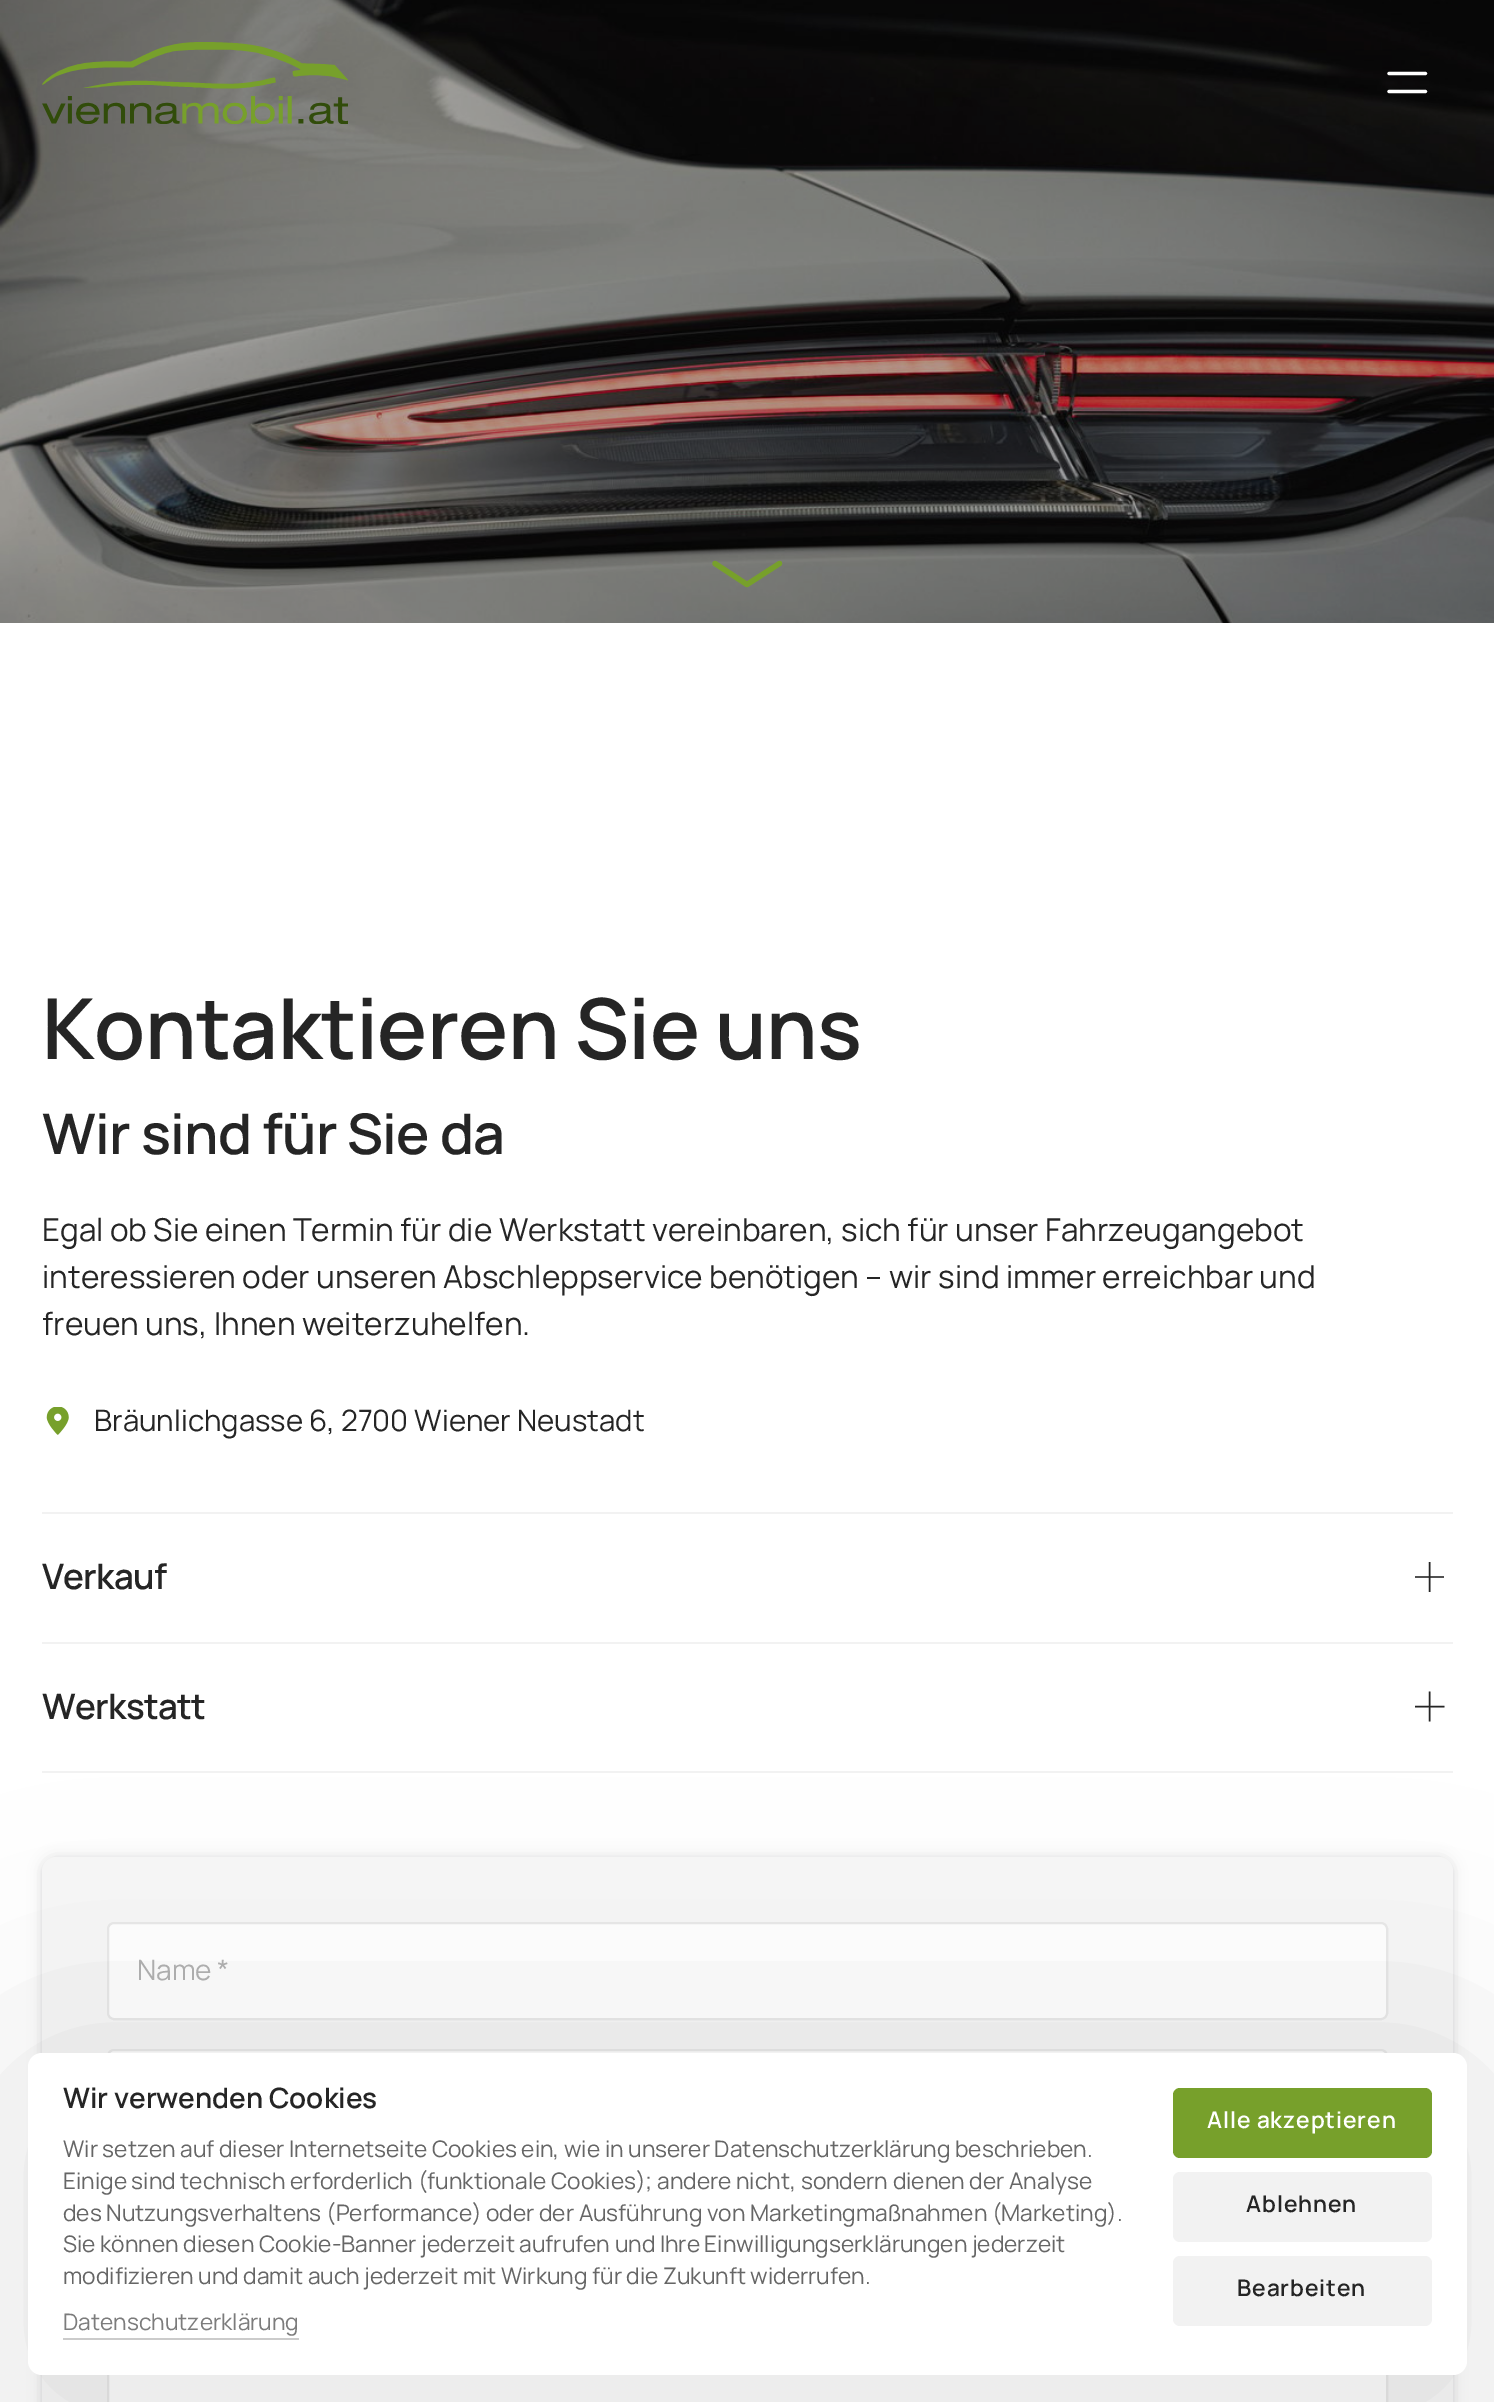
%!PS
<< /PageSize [1494 2402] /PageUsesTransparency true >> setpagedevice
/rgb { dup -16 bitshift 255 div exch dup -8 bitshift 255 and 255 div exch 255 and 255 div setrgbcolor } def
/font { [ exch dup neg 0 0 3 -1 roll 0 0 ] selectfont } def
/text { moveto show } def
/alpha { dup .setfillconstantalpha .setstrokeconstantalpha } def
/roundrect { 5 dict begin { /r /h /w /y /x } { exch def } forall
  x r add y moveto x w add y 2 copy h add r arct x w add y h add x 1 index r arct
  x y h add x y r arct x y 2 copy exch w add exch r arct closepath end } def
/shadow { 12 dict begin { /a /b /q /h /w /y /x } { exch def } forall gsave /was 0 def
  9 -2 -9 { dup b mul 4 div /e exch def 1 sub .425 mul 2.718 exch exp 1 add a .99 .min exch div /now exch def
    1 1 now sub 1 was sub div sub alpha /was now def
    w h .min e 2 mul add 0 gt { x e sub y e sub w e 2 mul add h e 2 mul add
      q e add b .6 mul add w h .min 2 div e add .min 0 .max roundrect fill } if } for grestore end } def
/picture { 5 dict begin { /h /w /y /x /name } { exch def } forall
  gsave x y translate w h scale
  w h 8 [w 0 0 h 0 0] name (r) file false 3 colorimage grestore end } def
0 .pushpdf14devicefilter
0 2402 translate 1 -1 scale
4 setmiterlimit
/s1 { /Manrope-Regular 31.5 font 16#252525 rgb } def
/s2 { /Manrope-Regular 29.4 font 16#252525 rgb } def
/s3 { /Manrope-Regular 28 font 16#B3B3B3 rgb } def
/s4 { /Manrope-SemiBold 28 font 16#252525 rgb } def
/s5 { /Manrope-Regular 22.75 font 16#666666 rgb } def
/s6 { /Manrope-Regular 22.75 font 16#7C7C7C rgb } def
16#FFFFFF rgb
0 0 1494 2402 rectfill
(pic1.raw) 0 0 1494 623 picture
16#77A02B rgb
5.3 setlinewidth
1 setlinecap
1 setlinejoin
779.5 563.5 moveto 747 584.5 lineto 715 563.5 lineto stroke
(pic2.raw) 42 42 306 82 picture
16#FFFFFF rgb
3.2 setlinewidth
1389 73.5 moveto 1425.5 73.5 lineto 1389 91.5 moveto 1425.5 91.5 lineto stroke
/Manrope-SemiBold 84 font
16#252525 rgb
42 1059 moveto -0.7 0 (Kontaktieren Sie uns) ashow
/Manrope-SemiBold 56 font
42 1154 moveto -0.7 0 (Wir sind für Sie da) ashow
s1
(Egal ob Sie einen Termin für die Werkstatt vereinbaren, sich für unser Fahrzeugangebot) 42 1241 text
(interessieren oder unseren Abschleppservice benötigen – wir sind immer erreichbar und) 42 1288 text
(freuen uns, Ihnen weiterzuhelfen.) 42 1335 text
(pic3.raw) 46 1407 23 28 picture
s2
(Bräunlichgasse 6, 2700 Wiener Neustadt) 94 1431 text
16#F2F2F2 rgb
42 1512 1411 2 rectfill
/Manrope-SemiBold 35 font
16#252525 rgb
42 1589 moveto -0.7 0 (Verkauf) ashow
1.6 setlinewidth
2 setlinecap
0 setlinejoin
1429.5 1563 moveto 1429.5 1591 lineto stroke
0.8 alpha
1415 1576 29 2 rectfill
1 alpha
16#F2F2F2 rgb
42 1642 1411 2 rectfill
42 1771 1411 2 rectfill
16#252525 rgb
42 1719 moveto -0.7 0 (Werkstatt) ashow
1429.5 1692.5 moveto 1429.5 1720.5 lineto 1443.5 1706.5 moveto 1416 1706.5 lineto stroke
16#11111A rgb
42 1857 1411 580 14 7 0.1 shadow
42 1859 1411 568 14 3.5 0.05 shadow
16#F7F7F7 rgb
42 1857 1411 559 14 roundrect fill
16#FFFFFF rgb
107 1922 1281 98 7 roundrect fill
0.1 alpha
16#252525 rgb
2 setlinewidth
0 setlinecap
108 1923 1279 96 6 roundrect stroke
1 alpha
s3
(Name *) 137 1980 text
16#FFFFFF rgb
107 2049 1281 98 7 roundrect fill
0.1 alpha
16#252525 rgb
108 2050 1279 96 6 roundrect stroke
1 alpha
16#FFFFFF rgb
107 2375 1281 27 rectfill
0.1 alpha
16#252525 rgb
108 2306 1279 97 rectstroke
1 alpha
16#000000 rgb
-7 2053 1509 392 49 122.5 0.1 shadow
16#FFFFFF rgb
28 2053 1439 322 14 roundrect fill
s4
(Wir verwenden Cookies) 63 2108 text
s5
(Wir setzen auf dieser Internetseite Cookies ein, wie in unserer Datenschutzerklärung beschrieben.) 63 2157 text
(Einige sind technisch erforderlich \(funktionale Cookies\); andere nicht, sondern dienen der Analyse) 63 2189 text
(des Nutzungsverhaltens \(Performance\) oder der Ausführung von Marketingmaßnahmen \(Marketing\).) 63 2221 text
(Sie können diesen Cookie-Banner jederzeit aufrufen und Ihre Einwilligungserklärungen jederzeit) 63 2252 text
(modifizieren und damit auch jederzeit mit Wirkung für die Zukunft widerrufen.) 63 2284 text
s6
(Datenschutzerklärung) 63 2330 text
16#CBCBCB rgb
63 2338 236 2 rectfill
16#77A02B rgb
1173 2088 259 70 7 roundrect fill
/Manrope-SemiBold 22.75 font
16#FFFFFF rgb
1207 2128 moveto 0.9 0 (Alle akzeptieren) ashow
16#F2F2F2 rgb
1173 2172 259 70 7 roundrect fill
16#252525 rgb
1246 2212 moveto 0.9 0 (Ablehnen) ashow
16#F2F2F2 rgb
1173 2256 259 70 7 roundrect fill
16#252525 rgb
1237 2296 moveto 0.9 0 (Bearbeiten) ashow
.poppdf14devicefilter showpage
